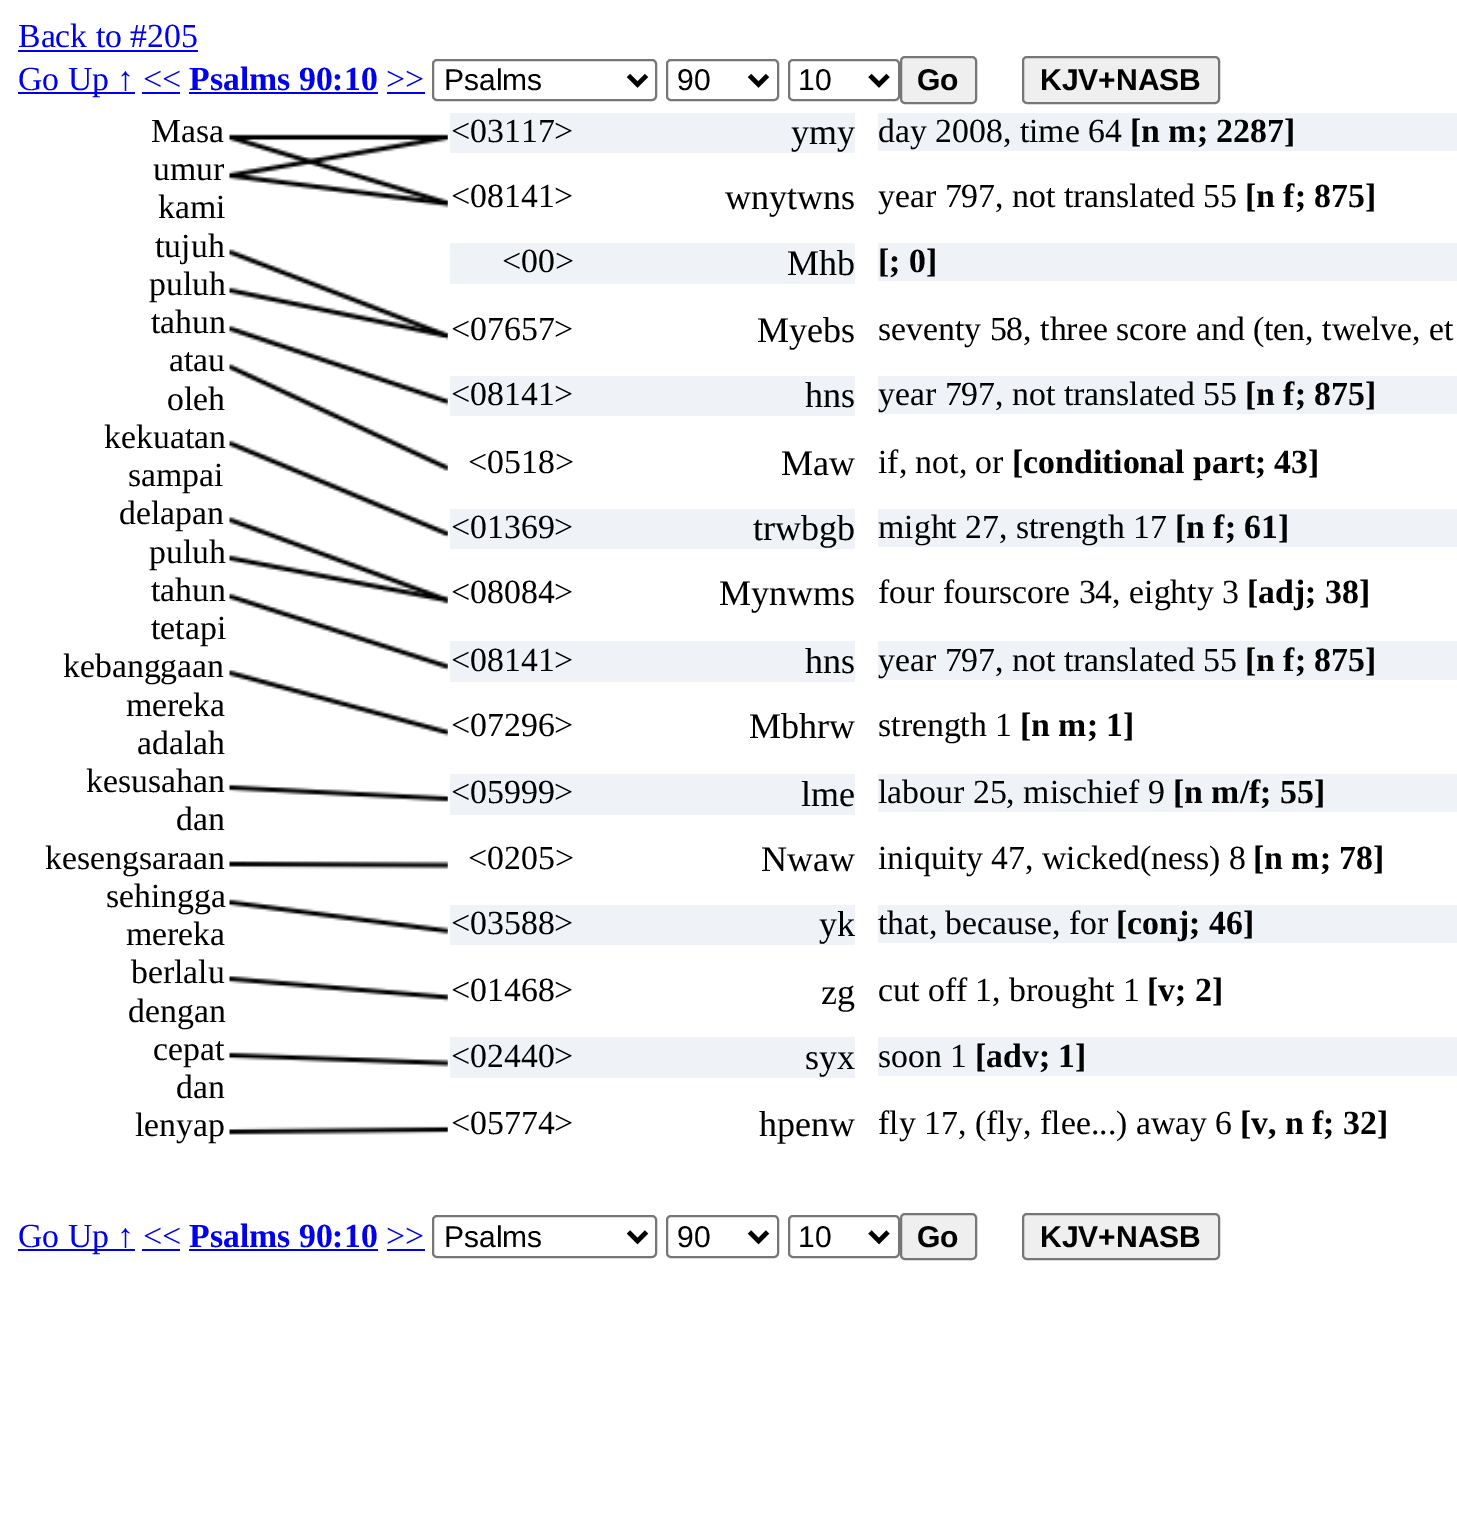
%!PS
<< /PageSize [1457 1528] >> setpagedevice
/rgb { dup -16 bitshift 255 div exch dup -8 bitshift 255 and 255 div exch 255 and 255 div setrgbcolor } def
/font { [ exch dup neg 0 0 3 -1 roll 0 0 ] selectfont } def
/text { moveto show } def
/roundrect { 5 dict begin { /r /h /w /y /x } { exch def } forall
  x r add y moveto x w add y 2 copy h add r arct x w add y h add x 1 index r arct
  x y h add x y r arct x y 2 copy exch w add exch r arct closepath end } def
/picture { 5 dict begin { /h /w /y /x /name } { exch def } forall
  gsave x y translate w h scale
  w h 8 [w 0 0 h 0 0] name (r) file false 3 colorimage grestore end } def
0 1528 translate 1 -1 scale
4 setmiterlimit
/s1 { /LiberationSerif-Regular 33.75 font 16#0000EE rgb } def
/s2 { /LiberationSerif-Bold 33.75 font 16#0000EE rgb } def
/s3 { /LiberationSans-Regular 30 font 16#000000 rgb } def
/s4 { /LiberationSans-Bold 30 font 16#000000 rgb } def
/s5 { /LiberationSerif-Regular 33.75 font 16#000000 rgb } def
/s6 { /LiberationSerif-Regular 36 font 16#000000 rgb } def
/s7 { /LiberationSerif-Bold 33.75 font 16#000000 rgb } def
16#FFFFFF rgb
0 0 1457 1528 rectfill
s1
(Back to #205) 18 47 text
18 50 180 2 rectfill
18 92 117 2 rectfill
(Go Up ↑ <<) 18 90 text
s2
(Psalms 90:10) 189 90 text
189 92 189 2 rectfill
s1
(>>) 386 90 text
387 92 38 2 rectfill
16#767676 rgb
2 setlinewidth
433 60 223 40 4 roundrect stroke
16#000000 rgb
4.5 setlinewidth
628.5 75.5 moveto 637.5 84.5 lineto 646.5 75.5 lineto stroke
s3
(Psalms) 444 90 text
16#767676 rgb
2 setlinewidth
667 60 111 40 4 roundrect stroke
16#000000 rgb
4.5 setlinewidth
749.5 75.5 moveto 758.5 84.5 lineto 767.5 75.5 lineto stroke
(90) 677 90 text
16#767676 rgb
2 setlinewidth
789 60 110 40 4 roundrect stroke
16#000000 rgb
4.5 setlinewidth
870 75.5 moveto 879 84.5 lineto 888 75.5 lineto stroke
(10) 798 90 text
16#EFEFEF rgb
901 57 75 46 4 roundrect gsave fill grestore
16#767676 rgb
2 setlinewidth
stroke
s4
(Go) 917 90 text
16#EFEFEF rgb
1023 57 196 46 4 roundrect gsave fill grestore
16#767676 rgb
stroke
s4
(KJV+NASB) 1040 90 text
16#0000EE rgb
142 92 38 2 rectfill
s5
(Masa) 151 142 text
(pic1.raw) 229 134 219 1001 picture
16#EFF3F7 rgb
450 113 405 40 rectfill
s5
(<03117>) 451 142 text
s6
(ymy) 791 144 text
16#EFF3F7 rgb
878 113 579 38 rectfill
s5
(day 2008, time 64) 878 142 text
s7
([n m; 2287]) 1130 142 text
s5
(umur) 153 180 text
(kami) 158 218 text
(<08141>) 451 207 text
s6
(wnytwns) 725 209 text
s5
(year 797, not translated 55) 878 207 text
s7
([n f; 875]) 1245 207 text
s5
(tujuh) 155 257 text
16#EFF3F7 rgb
450 243 405 41 rectfill
s5
(<00>) 502 272 text
s6
(Mhb) 787 275 text
16#EFF3F7 rgb
878 243 579 38 rectfill
s7
([; 0]) 878 272 text
s5
(puluh) 149 295 text
(tahun) 151 333 text
(<07657>) 451 340 text
s6
(Myebs) 757 342 text
s5
(seventy 58, three score and \(ten, twelve, et) 878 340 text
(atau) 169 371 text
(oleh) 167 410 text
16#EFF3F7 rgb
450 376 405 40 rectfill
s5
(<08141>) 451 405 text
s6
(hns) 805 407 text
16#EFF3F7 rgb
878 376 579 38 rectfill
s5
(year 797, not translated 55) 878 405 text
s7
([n f; 875]) 1245 405 text
s5
(kekuatan) 104 448 text
(sampai) 128 486 text
(<0518>) 468 473 text
s6
(Maw) 781 475 text
s5
(if, not, or) 878 473 text
s7
([conditional part; 43]) 1012 473 text
s5
(delapan) 119 524 text
16#EFF3F7 rgb
450 509 405 40 rectfill
s5
(<01369>) 451 538 text
s6
(trwbgb) 753 540 text
16#EFF3F7 rgb
878 509 579 38 rectfill
s5
(might 27, strength 17) 878 538 text
s7
([n f; 61]) 1175 538 text
s5
(puluh) 149 563 text
(tahun) 151 601 text
(<08084>) 451 603 text
s6
(Mynwms) 719 605 text
s5
(four fourscore 34, eighty 3) 878 603 text
s7
([adj; 38]) 1247 603 text
s5
(tetapi) 151 639 text
(kebanggaan) 63 677 text
16#EFF3F7 rgb
450 641 405 41 rectfill
s5
(<08141>) 451 671 text
s6
(hns) 805 673 text
16#EFF3F7 rgb
878 641 579 39 rectfill
s5
(year 797, not translated 55) 878 671 text
s7
([n f; 875]) 1245 671 text
s5
(mereka) 126 716 text
(<07296>) 451 736 text
s6
(Mbhrw) 749 738 text
s5
(strength 1) 878 736 text
s7
([n m; 1]) 1020 736 text
s5
(adalah) 137 754 text
(kesusahan) 86 792 text
16#EFF3F7 rgb
450 774 405 41 rectfill
s5
(<05999>) 451 803 text
s6
(lme) 801 806 text
16#EFF3F7 rgb
878 774 579 38 rectfill
s5
(labour 25, mischief 9) 878 803 text
s7
([n m/f; 55]) 1173 803 text
s5
(dan) 176 830 text
(kesengsaraan) 45 869 text
(<0205>) 468 869 text
s6
(Nwaw) 761 871 text
s5
(iniquity 47, wicked\(ness\) 8) 878 869 text
s7
([n m; 78]) 1253 869 text
s5
(sehingga) 106 907 text
(mereka) 126 945 text
16#EFF3F7 rgb
450 905 405 40 rectfill
s5
(<03588>) 451 934 text
s6
(yk) 819 936 text
16#EFF3F7 rgb
878 905 579 38 rectfill
s5
(that, because, for) 878 934 text
s7
([conj; 46]) 1116 934 text
s5
(berlalu) 131 983 text
(dengan) 128 1022 text
(<01468>) 451 1001 text
s6
(zg) 821 1004 text
s5
(cut off 1, brought 1) 878 1001 text
s7
([v; 2]) 1147 1001 text
s5
(cepat) 153 1060 text
16#EFF3F7 rgb
450 1037 405 41 rectfill
s5
(<02440>) 451 1067 text
s6
(syx) 805 1069 text
16#EFF3F7 rgb
878 1037 579 39 rectfill
s5
(soon 1) 878 1067 text
s7
([adv; 1]) 975 1067 text
s5
(dan) 176 1098 text
(lenyap) 135 1136 text
(<05774>) 451 1134 text
s6
(hpenw) 759 1136 text
s5
(fly 17, \(fly, flee...\) away 6) 878 1134 text
s7
([v, n f; 32]) 1240 1134 text
16#0000EE rgb
18 1249 117 2 rectfill
s1
(Go Up ↑ <<) 18 1247 text
s2
(Psalms 90:10) 189 1247 text
189 1249 189 2 rectfill
s1
(>>) 386 1247 text
387 1249 38 2 rectfill
16#767676 rgb
433 1216 223 41 4 roundrect stroke
16#000000 rgb
4.5 setlinewidth
628.5 1232 moveto 637.5 1241 lineto 646.5 1232 lineto stroke
s3
(Psalms) 444 1247 text
16#767676 rgb
2 setlinewidth
667 1216 111 41 4 roundrect stroke
16#000000 rgb
4.5 setlinewidth
749.5 1232 moveto 758.5 1241 lineto 767.5 1232 lineto stroke
(90) 677 1247 text
16#767676 rgb
2 setlinewidth
789 1216 110 41 4 roundrect stroke
16#000000 rgb
4.5 setlinewidth
870 1232 moveto 879 1241 lineto 888 1232 lineto stroke
(10) 798 1247 text
16#EFEFEF rgb
901 1214 75 45 4 roundrect gsave fill grestore
16#767676 rgb
2 setlinewidth
stroke
s4
(Go) 917 1247 text
16#EFEFEF rgb
1023 1214 196 45 4 roundrect gsave fill grestore
16#767676 rgb
stroke
s4
(KJV+NASB) 1040 1247 text
16#0000EE rgb
142 1249 38 2 rectfill
showpage
